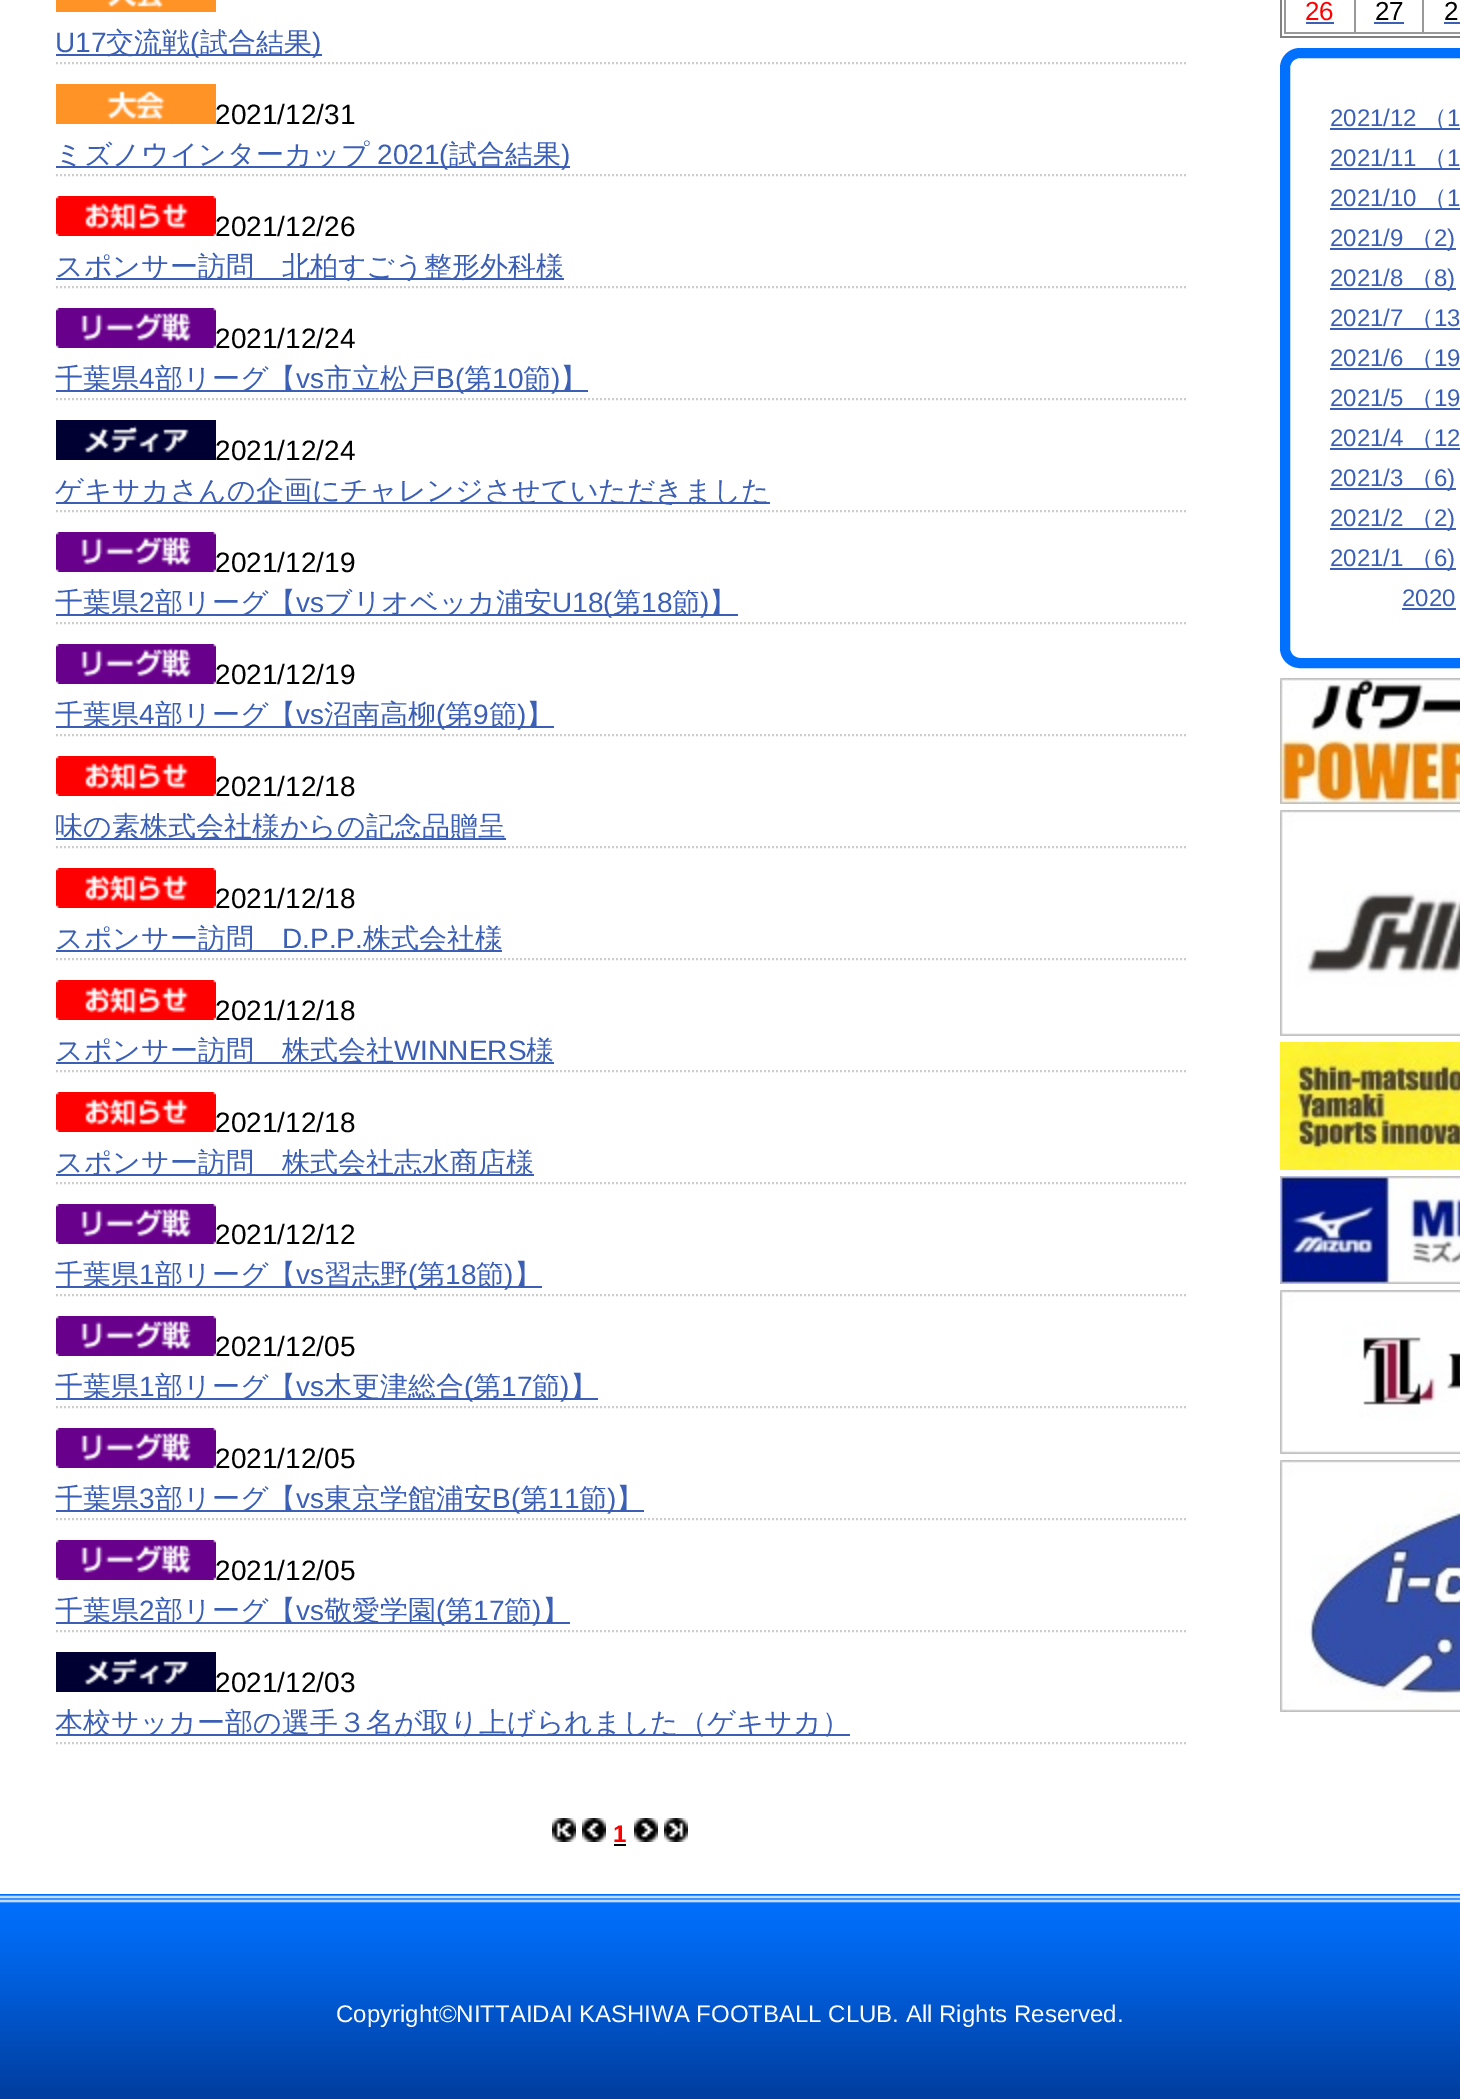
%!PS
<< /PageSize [1460 2099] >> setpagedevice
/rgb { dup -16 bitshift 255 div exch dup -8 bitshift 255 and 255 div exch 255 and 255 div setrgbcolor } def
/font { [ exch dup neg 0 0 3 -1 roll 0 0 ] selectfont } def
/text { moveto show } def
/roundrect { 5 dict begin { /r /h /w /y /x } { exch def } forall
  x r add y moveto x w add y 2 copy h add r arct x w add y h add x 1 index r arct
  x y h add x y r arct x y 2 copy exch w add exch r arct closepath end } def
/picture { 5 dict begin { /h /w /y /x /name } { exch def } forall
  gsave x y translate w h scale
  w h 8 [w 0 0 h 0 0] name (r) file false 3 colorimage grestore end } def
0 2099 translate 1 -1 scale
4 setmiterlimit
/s1 { /LiberationSans-Regular 28 font 16#3B5FB5 rgb } def
/s2 { /WenQuanYiZenHei-Medium 28 font 16#3B5FB5 rgb } def
/s3 { /LiberationSans-Regular 28 font 16#000000 rgb } def
/s4 { /LiberationSans-Bold 24 font 16#FF0000 rgb } def
/s5 { /LiberationSans-Regular 26 font 16#FF0000 rgb } def
/s6 { /LiberationSans-Regular 26 font 16#000000 rgb } def
/s7 { /LiberationSans-Regular 24 font 16#3B5FB5 rgb } def
/s8 { /WenQuanYiZenHei-Medium 24 font 16#3B5FB5 rgb } def
/s9 { /LiberationSans-Regular 24 font 16#FFFFFF rgb } def
16#FFFFFF rgb
0 0 1460 2099 rectfill
16#CCCCCC rgb
2 setlinewidth
[2 2] 0 setdash
56 63 moveto 1186 63 lineto stroke
(pic1.raw) 56 0 160 12 picture
s1
(U17) 55 52 text
56 54 266 2 rectfill
s2
(交流戦) 106 52 text
s1
(\() 190 52 text
s2
(試合結果) 200 52 text
s1
(\)) 312 52 text
16#CCCCCC rgb
56 175 moveto 1186 175 lineto stroke
(pic2.raw) 56 84 160 40 picture
s3
(2021/12/31) 215 124 text
16#3B5FB5 rgb
56 166 514 2 rectfill
s2
(ミズノウインターカップ) 55 164 text
s1
(2021\() 377 164 text
s2
(試合結果) 449 164 text
s1
(\)) 561 164 text
16#CCCCCC rgb
56 287 moveto 1186 287 lineto stroke
(pic3.raw) 56 196 160 40 picture
s3
(2021/12/26) 215 236 text
16#3B5FB5 rgb
56 278 508 2 rectfill
s2
(スポンサー訪問　北柏すごう整形外科様) 55 276 text
16#CCCCCC rgb
56 399 moveto 1186 399 lineto stroke
(pic4.raw) 56 308 160 40 picture
s3
(2021/12/24) 215 348 text
16#3B5FB5 rgb
56 390 532 2 rectfill
s2
(千葉県) 55 388 text
s1
(4) 139 388 text
s2
(部リーグ【) 155 388 text
s1
(vs) 296 388 text
s2
(市立松戸) 324 388 text
s1
(B\() 436 388 text
s2
(第) 464 388 text
s1
(10) 492 388 text
s2
(節) 523 388 text
s1
(\)) 551 388 text
s2
(】) 560 388 text
16#CCCCCC rgb
56 511 moveto 1186 511 lineto stroke
(pic5.raw) 56 420 160 40 picture
s3
(2021/12/24) 215 460 text
16#3B5FB5 rgb
56 502 714 2 rectfill
s2
(ゲキサカさんの企画にチャレンジさせていただきました) 55 500 text
16#CCCCCC rgb
56 623 moveto 1186 623 lineto stroke
(pic4.raw) 56 532 160 40 picture
s3
(2021/12/19) 215 572 text
16#3B5FB5 rgb
56 614 682 2 rectfill
s2
(千葉県) 55 612 text
s1
(2) 139 612 text
s2
(部リーグ【) 155 612 text
s1
(vs) 296 612 text
s2
(ブリオベッカ浦安) 324 612 text
s1
(U18\() 552 612 text
s2
(第) 613 612 text
s1
(18) 641 612 text
s2
(節) 672 612 text
s1
(\)) 700 612 text
s2
(】) 709 612 text
16#CCCCCC rgb
56 735 moveto 1186 735 lineto stroke
(pic4.raw) 56 644 160 40 picture
s3
(2021/12/19) 215 684 text
16#3B5FB5 rgb
56 726 498 2 rectfill
s2
(千葉県) 55 724 text
s1
(4) 139 724 text
s2
(部リーグ【) 155 724 text
s1
(vs) 296 724 text
s2
(沼南高柳) 324 724 text
s1
(\() 436 724 text
s2
(第) 445 724 text
s1
(9) 473 724 text
s2
(節) 489 724 text
s1
(\)) 517 724 text
s2
(】) 526 724 text
16#CCCCCC rgb
56 847 moveto 1186 847 lineto stroke
(pic3.raw) 56 756 160 40 picture
s3
(2021/12/18) 215 796 text
16#3B5FB5 rgb
56 838 450 2 rectfill
s2
(味の素株式会社様からの記念品贈呈) 55 836 text
16#CCCCCC rgb
56 959 moveto 1186 959 lineto stroke
(pic3.raw) 56 868 160 40 picture
s3
(2021/12/18) 215 908 text
16#3B5FB5 rgb
56 950 446 2 rectfill
s2
(スポンサー訪問) 55 948 text
s1
(D.P.P.) 282 948 text
s2
(株式会社様) 363 948 text
16#CCCCCC rgb
56 1071 moveto 1186 1071 lineto stroke
(pic3.raw) 56 980 160 40 picture
s3
(2021/12/18) 215 1020 text
16#3B5FB5 rgb
56 1062 498 2 rectfill
s2
(スポンサー訪問　株式会社) 55 1060 text
s1
(WINNERS) 394 1060 text
s2
(様) 526 1060 text
16#CCCCCC rgb
56 1183 moveto 1186 1183 lineto stroke
(pic3.raw) 56 1092 160 40 picture
s3
(2021/12/18) 215 1132 text
16#3B5FB5 rgb
56 1174 478 2 rectfill
s2
(スポンサー訪問　株式会社志水商店様) 55 1172 text
16#CCCCCC rgb
56 1295 moveto 1186 1295 lineto stroke
(pic4.raw) 56 1204 160 40 picture
s3
(2021/12/12) 215 1244 text
16#3B5FB5 rgb
56 1286 486 2 rectfill
s2
(千葉県) 55 1284 text
s1
(1) 139 1284 text
s2
(部リーグ【) 155 1284 text
s1
(vs) 296 1284 text
s2
(習志野) 324 1284 text
s1
(\() 408 1284 text
s2
(第) 417 1284 text
s1
(18) 445 1284 text
s2
(節) 476 1284 text
s1
(\)) 504 1284 text
s2
(】) 514 1284 text
16#CCCCCC rgb
56 1407 moveto 1186 1407 lineto stroke
(pic4.raw) 56 1316 160 40 picture
s3
(2021/12/05) 215 1356 text
16#3B5FB5 rgb
56 1398 542 2 rectfill
s2
(千葉県) 55 1396 text
s1
(1) 139 1396 text
s2
(部リーグ【) 155 1396 text
s1
(vs) 296 1396 text
s2
(木更津総合) 324 1396 text
s1
(\() 464 1396 text
s2
(第) 473 1396 text
s1
(17) 501 1396 text
s2
(節) 532 1396 text
s1
(\)) 560 1396 text
s2
(】) 570 1396 text
16#CCCCCC rgb
56 1519 moveto 1186 1519 lineto stroke
(pic4.raw) 56 1428 160 40 picture
s3
(2021/12/05) 215 1468 text
16#3B5FB5 rgb
56 1510 588 2 rectfill
s2
(千葉県) 55 1508 text
s1
(3) 139 1508 text
s2
(部リーグ【) 155 1508 text
s1
(vs) 296 1508 text
s2
(東京学館浦安) 324 1508 text
s1
(B\() 492 1508 text
s2
(第) 520 1508 text
s1
(11) 548 1508 text
s2
(節) 579 1508 text
s1
(\)) 607 1508 text
s2
(】) 616 1508 text
16#CCCCCC rgb
56 1631 moveto 1186 1631 lineto stroke
(pic4.raw) 56 1540 160 40 picture
s3
(2021/12/05) 215 1580 text
16#3B5FB5 rgb
56 1622 514 2 rectfill
s2
(千葉県) 55 1620 text
s1
(2) 139 1620 text
s2
(部リーグ【) 155 1620 text
s1
(vs) 296 1620 text
s2
(敬愛学園) 324 1620 text
s1
(\() 436 1620 text
s2
(第) 445 1620 text
s1
(17) 473 1620 text
s2
(節) 504 1620 text
s1
(\)) 532 1620 text
s2
(】) 542 1620 text
16#CCCCCC rgb
56 1743 moveto 1186 1743 lineto stroke
(pic5.raw) 56 1652 160 40 picture
s3
(2021/12/03) 215 1692 text
16#3B5FB5 rgb
56 1734 794 2 rectfill
s2
(本校サッカー部の選手３名が取り上げられました（ゲキサカ）) 55 1732 text
(pic6.raw) 552 1818 24 24 picture
(pic7.raw) 582 1818 24 24 picture
s4
(1) 613 1842 text
16#000000 rgb
614 1844 12 2 rectfill
(pic8.raw) 634 1818 24 24 picture
(pic9.raw) 664 1818 24 24 picture
16#808080 rgb
1280 36 180 2 rectfill
1280 0 2 38 rectfill
16#999999 rgb
1284 0 176 34 rectfill
16#FFFFFF rgb
1286 0 68 32 rectfill
s5
(26) 1305 20 text
16#3B5FB5 rgb
1306 22 28 2 rectfill
16#FFFFFF rgb
1356 0 66 32 rectfill
s6
(27) 1375 20 text
16#3B5FB5 rgb
1374 22 30 2 rectfill
16#FFFFFF rgb
1424 0 36 32 rectfill
s6
(2) 1444 20 text
16#3B5FB5 rgb
1444 22 16 2 rectfill
16#0070FE rgb
10 setlinewidth
[] 0 setdash
1285 53 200 610 15 roundrect stroke
s7
(2021/12) 1330 126 text
1330 128 130 2 rectfill
s8
(（) 1423 126 text
s7
(1) 1447 126 text
(2021/11) 1330 166 text
1330 168 130 2 rectfill
s8
(（) 1423 166 text
s7
(1) 1447 166 text
(2021/10) 1330 206 text
1330 208 130 2 rectfill
s8
(（) 1423 206 text
s7
(1) 1447 206 text
(2021/9) 1330 246 text
1330 248 126 2 rectfill
s8
(（) 1410 246 text
s7
(2\)) 1434 246 text
(2021/8) 1330 286 text
1330 288 126 2 rectfill
s8
(（) 1410 286 text
s7
(8\)) 1434 286 text
(2021/7) 1330 326 text
1330 328 130 2 rectfill
s8
(（) 1410 326 text
s7
(13) 1434 326 text
(2021/6) 1330 366 text
1330 368 130 2 rectfill
s8
(（) 1410 366 text
s7
(19) 1434 366 text
(2021/5) 1330 406 text
1330 408 130 2 rectfill
s8
(（) 1410 406 text
s7
(19) 1434 406 text
(2021/4) 1330 446 text
1330 448 130 2 rectfill
s8
(（) 1410 446 text
s7
(12) 1434 446 text
(2021/3) 1330 486 text
1330 488 126 2 rectfill
s8
(（) 1410 486 text
s7
(6\)) 1434 486 text
(2021/2) 1330 526 text
1330 528 126 2 rectfill
s8
(（) 1410 526 text
s7
(2\)) 1434 526 text
(2021/1) 1330 566 text
1330 568 126 2 rectfill
s8
(（) 1410 566 text
s7
(6\)) 1434 566 text
(2020) 1402 606 text
1402 608 54 2 rectfill
(pic10.raw) 1280 678 180 126 picture
(pic11.raw) 1280 810 180 226 picture
(pic12.raw) 1280 1042 180 128 picture
(pic13.raw) 1280 1176 180 108 picture
(pic14.raw) 1280 1290 180 164 picture
(pic15.raw) 1280 1460 180 252 picture
(pic16.raw) 0 1894 1460 205 picture
s9
(Copyright©NITTAIDAI KASHIWA FOOTBALL CLUB. All Rights Reserved.) 336 2022 text
showpage
